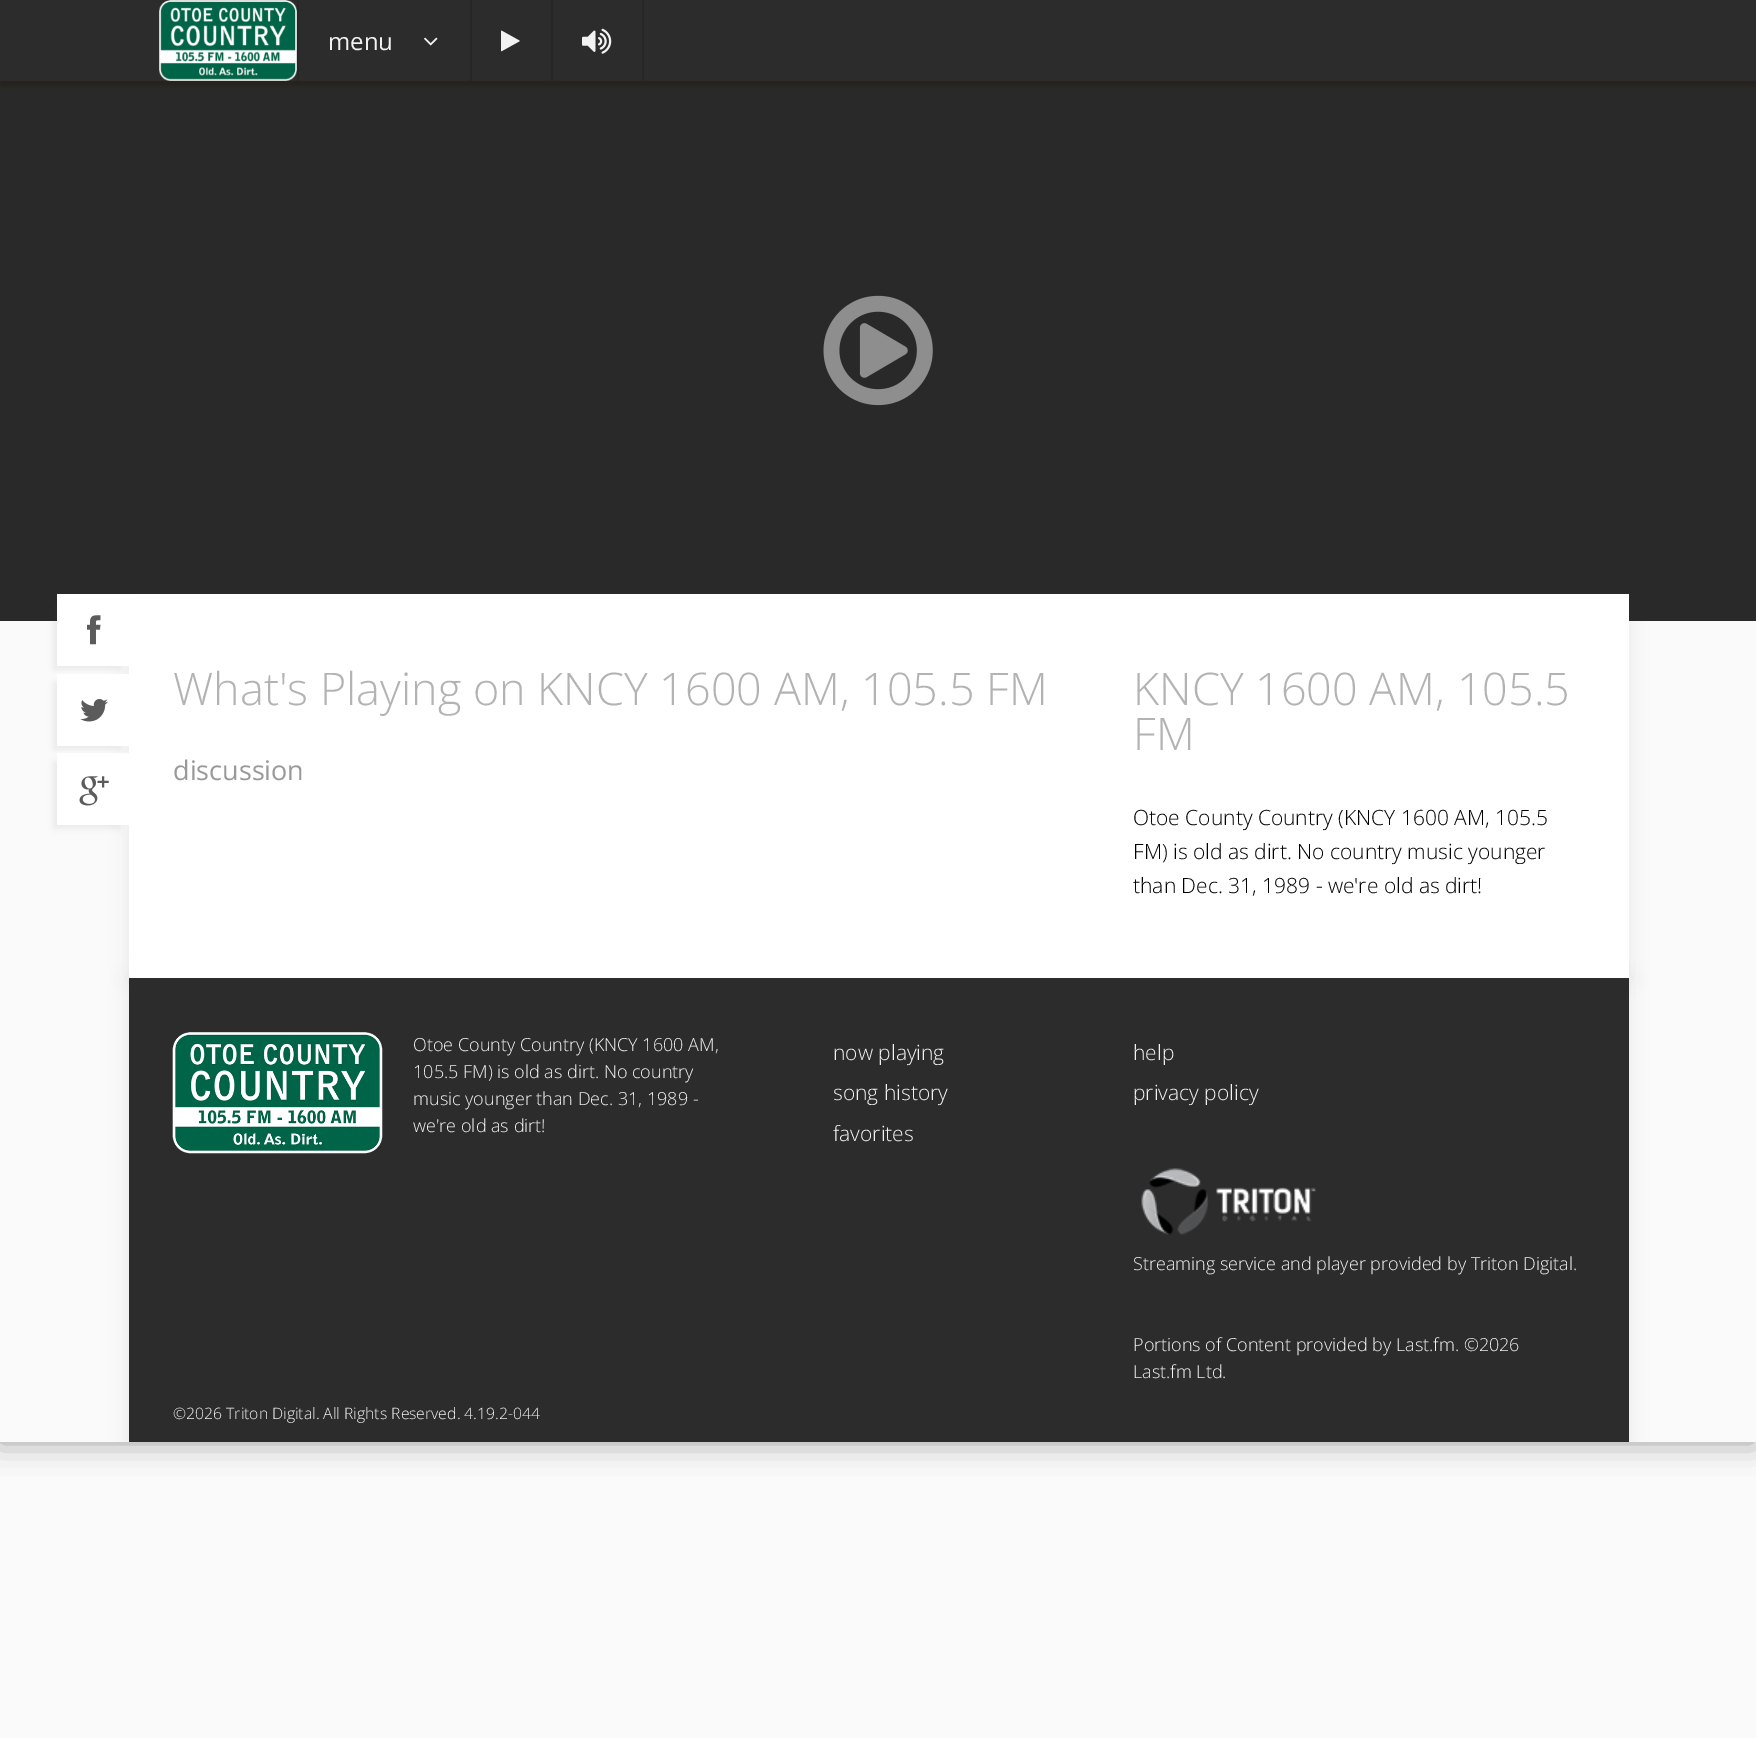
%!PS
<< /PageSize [1756 1738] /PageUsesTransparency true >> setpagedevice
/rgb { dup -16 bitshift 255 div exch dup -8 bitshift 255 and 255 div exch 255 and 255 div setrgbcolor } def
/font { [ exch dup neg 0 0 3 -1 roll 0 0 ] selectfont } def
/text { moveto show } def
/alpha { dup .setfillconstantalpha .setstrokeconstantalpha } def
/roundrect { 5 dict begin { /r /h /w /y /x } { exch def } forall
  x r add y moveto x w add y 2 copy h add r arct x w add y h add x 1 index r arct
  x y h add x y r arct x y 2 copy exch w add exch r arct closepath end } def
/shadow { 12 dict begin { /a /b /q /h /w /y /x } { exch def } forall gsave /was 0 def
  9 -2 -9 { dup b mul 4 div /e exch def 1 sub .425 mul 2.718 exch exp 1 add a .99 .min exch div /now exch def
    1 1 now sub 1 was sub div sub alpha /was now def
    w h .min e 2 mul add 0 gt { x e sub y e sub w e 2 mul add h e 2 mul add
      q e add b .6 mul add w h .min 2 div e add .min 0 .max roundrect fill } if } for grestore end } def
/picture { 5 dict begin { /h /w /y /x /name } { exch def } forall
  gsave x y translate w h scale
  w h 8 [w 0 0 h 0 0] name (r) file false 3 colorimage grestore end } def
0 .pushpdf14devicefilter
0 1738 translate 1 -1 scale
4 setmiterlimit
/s1 { /OpenSans-Regular 24 font 16#F2F2F2 rgb } def
/s2 { /OpenSans-Light 45 font 16#B3B3B3 rgb } def
/s3 { /OpenSans-Regular 27 font 16#999999 rgb } def
/s4 { /OpenSans-Light 21 font 16#000000 rgb } def
/s5 { /OpenSans-Light 18 font 16#F2F2F2 rgb } def
/s6 { /OpenSans-Light 21 font 16#F2F2F2 rgb } def
/s7 { /OpenSans-Light 15.75 font 16#F2F2F2 rgb } def
16#FAFAFA rgb
0 0 1756 1738 rectfill
gsave
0 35 moveto 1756 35 lineto 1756 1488 lineto 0 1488 lineto closepath 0 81 moveto 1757 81 lineto 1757 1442 lineto 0 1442 lineto closepath eoclip newpath
16#060607 rgb
-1 81 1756 1361 0 15 0.4 shadow
grestore
16#292929 rgb
0 81 1756 540 rectfill
16#231705 rgb
0 5 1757 81 0 2 0.4 shadow
16#2C2C2D rgb
0 0 1756 81 rectfill
16#262627 rgb
297 0 2 81 rectfill
(pic1.raw) 159 0 138 81 picture
470 0 2 81 rectfill
s1
(menu) 328 50 text
(pic2.raw) 424 37 14 9 picture
16#262627 rgb
551 0 2 81 rectfill
(pic3.raw) 501 30 19 22 picture
642 0 2 81 rectfill
(pic4.raw) 582 28 30 26 picture
(pic5.raw) 823 295 110 111 picture
gsave
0 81 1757 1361 rectclip
16#464646 rgb
129 978 1500 464 0 9 0.1 shadow
grestore
16#2C2C2D rgb
129 978 1500 464 rectfill
16#464646 rgb
129 594 1500 384 0 9 0.1 shadow
16#FFFFFF rgb
129 594 1500 384 rectfill
16#464646 rgb
54 603 66 66 0 3 0.1 shadow
16#FFFFFF rgb
57 594 72 72 rectfill
(pic6.raw) 87 615 14 30 picture
16#464646 rgb
54 683 66 66 0 3 0.1 shadow
16#FFFFFF rgb
57 674 72 72 rectfill
(pic7.raw) 80 699 28 23 picture
16#464646 rgb
54 762 66 66 0 3 0.1 shadow
16#FFFFFF rgb
57 753 72 72 rectfill
(pic8.raw) 79 776 30 30 picture
s2
(What's Playing on KNCY 1600 AM, 105.5 FM) 173 705 text
s3
(discussion) 173 780 text
s2
(KNCY 1600 AM, 105.5) 1133 705 text
(FM) 1133 750 text
s4
(Otoe County Country \(KNCY 1600 AM, 105.5) 1133 825 text
(FM\) is old as dirt. No country music younger) 1133 859 text
(than Dec. 31, 1989 - we're old as dirt!) 1133 893 text
(pic9.raw) 172 1032 211 122 picture
s5
(Otoe County Country \(KNCY 1600 AM,) 413 1051 text
(105.5 FM\) is old as dirt. No country) 413 1078 text
(music younger than Dec. 31, 1989 -) 413 1105 text
(we're old as dirt!) 413 1132 text
s6
(now playing) 833 1060 text
(song history) 833 1100 text
(favorites) 833 1141 text
(help) 1133 1060 text
(privacy policy) 1133 1100 text
(pic10.raw) 1141 1168 175 67 picture
s5
(Streaming service and player provided by Triton Digital.) 1133 1270 text
(Portions of Content provided by Last.fm. ©2026) 1133 1351 text
(Last.fm Ltd.) 1133 1378 text
s7
(©2026 Triton Digital. All Rights Reserved. 4.19.2-044) 173 1419 text
.poppdf14devicefilter showpage
